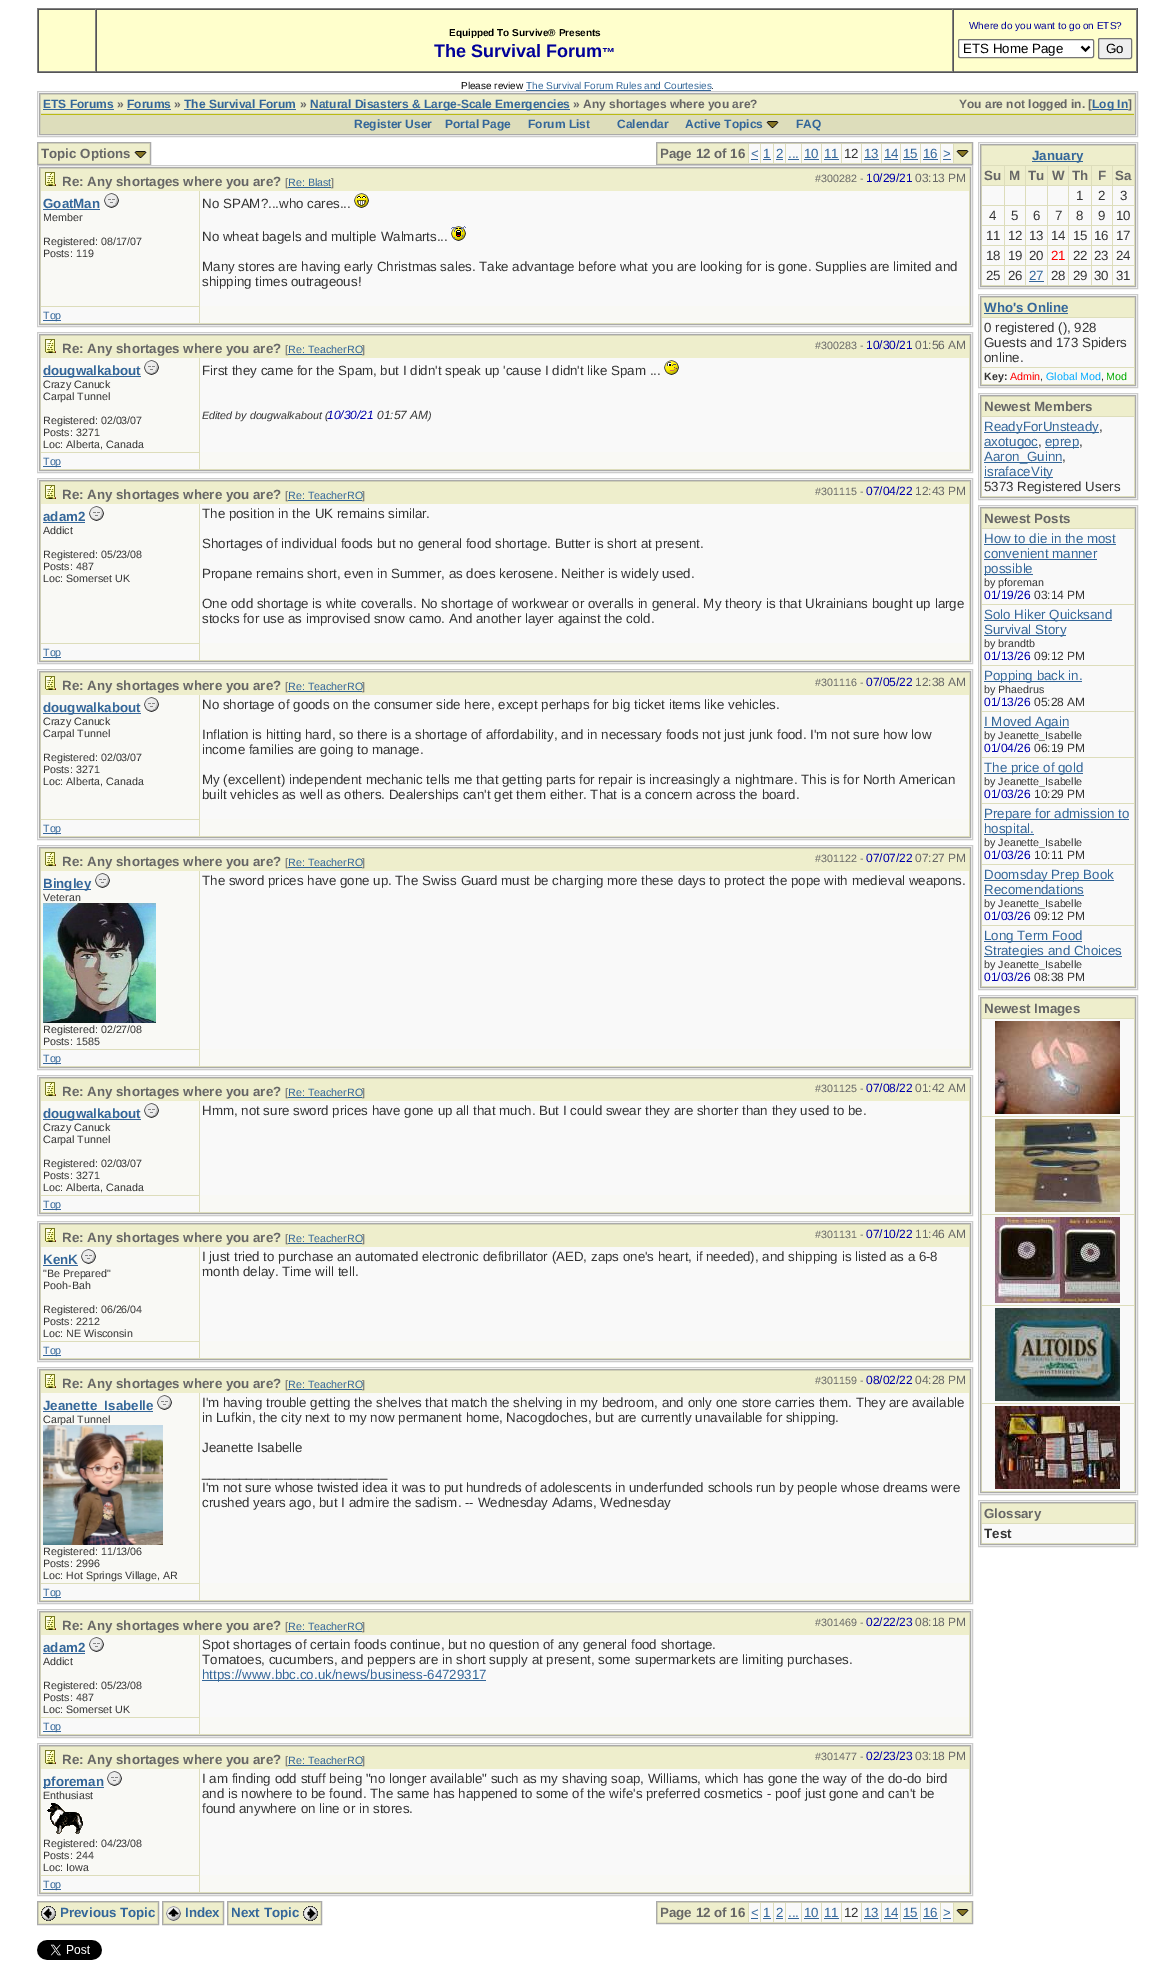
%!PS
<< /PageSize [1175 1983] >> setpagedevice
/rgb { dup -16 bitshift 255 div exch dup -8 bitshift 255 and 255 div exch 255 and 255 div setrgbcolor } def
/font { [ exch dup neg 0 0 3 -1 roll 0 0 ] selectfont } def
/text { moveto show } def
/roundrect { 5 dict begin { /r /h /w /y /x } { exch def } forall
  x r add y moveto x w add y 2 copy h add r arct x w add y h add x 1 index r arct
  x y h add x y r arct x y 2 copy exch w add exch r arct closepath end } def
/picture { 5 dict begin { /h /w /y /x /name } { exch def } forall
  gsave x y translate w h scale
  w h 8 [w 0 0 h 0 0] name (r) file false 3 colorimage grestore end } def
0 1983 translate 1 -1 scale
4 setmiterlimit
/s1 { /LiberationSans-Bold 10 font 16#000000 rgb } def
/s2 { /LiberationSans-Bold 18 font 16#000099 rgb } def
/s3 { /LiberationSans-Bold 13 font 16#000099 rgb } def
/s4 { /LiberationSans-Regular 10 font 16#000099 rgb } def
/s5 { /LiberationSans-Regular 13.33 font 16#000000 rgb } def
/s6 { /LiberationSans-Regular 10 font 16#000000 rgb } def
/s7 { /LiberationSans-Regular 10 font 16#336699 rgb } def
/s8 { /LiberationSans-Bold 12 font 16#336699 rgb } def
/s9 { /LiberationSans-Bold 12 font 16#666666 rgb } def
/s10 { /LiberationSans-Bold 13.33 font 16#666666 rgb } def
/s11 { /LiberationSans-Regular 13.33 font 16#336699 rgb } def
/s12 { /LiberationSans-Regular 13.33 font 16#333333 rgb } def
/s13 { /LiberationSans-Regular 10.7 font 16#666666 rgb } def
/s14 { /LiberationSans-Regular 10.7 font 16#336699 rgb } def
/s15 { /LiberationSans-Regular 12 font 16#0000AA rgb } def
/s16 { /LiberationSans-Regular 12 font 16#666666 rgb } def
/s17 { /LiberationSans-Bold 13.33 font 16#336699 rgb } def
/s18 { /LiberationSans-Regular 10.7 font 16#333333 rgb } def
/s19 { /LiberationSans-Italic 10.7 font 16#333333 rgb } def
/s20 { /LiberationSans-Italic 12 font 16#0000AA rgb } def
/s21 { /LiberationSans-Italic 12 font 16#333333 rgb } def
/s22 { /LiberationSans-Regular 13.33 font 16#FF0000 rgb } def
/s23 { /LiberationSans-Bold 10.7 font 16#333333 rgb } def
/s24 { /LiberationSans-Regular 10.7 font 16#FF0000 rgb } def
/s25 { /LiberationSans-Regular 10.7 font 16#00AAFF rgb } def
/s26 { /LiberationSans-Regular 10.7 font 16#00AA00 rgb } def
/s27 { /LiberationSans-Regular 12 font 16#333333 rgb } def
/s28 { /LiberationSans-Bold 13.33 font 16#333333 rgb } def
16#FFFFFF rgb
0 0 1175 1983 rectfill
16#808080 rgb
37 8 1101 1 rectfill
16#555555 rgb
1137 8 1 65 rectfill
37 72 1101 1 rectfill
16#808080 rgb
37 8 1 65 rectfill
16#FFFFCC rgb
39 10 56 61 rectfill
16#555555 rgb
38 9 1099 1 rectfill
16#808080 rgb
95 9 1 63 rectfill
38 71 58 1 rectfill
16#555555 rgb
38 9 1 63 rectfill
16#FFFFCC rgb
97 10 855 61 rectfill
16#808080 rgb
952 9 1 63 rectfill
96 71 857 1 rectfill
16#555555 rgb
96 9 1 63 rectfill
s1
(Equipped To Survive® Presents) 449 36 text
s2
(The Survival Forum) 434 57 text
s3
(™) 602 57 text
16#FFFFCC rgb
954 10 182 61 rectfill
16#808080 rgb
1136 9 1 63 rectfill
953 71 184 1 rectfill
16#555555 rgb
953 9 1 63 rectfill
s4
(Where do you want to go on ETS?) 969 29 text
16#FFFFFF rgb
958.5 39.5 135 18 1.5 roundrect gsave fill grestore
16#767676 rgb
stroke
16#000000 rgb
2 setlinewidth
1081.5 46.5 moveto 1085.5 50.5 lineto 1089.5 46.5 lineto stroke
s5
(ETS Home Page) 963 53 text
16#EFEFEF rgb
1098.5 38.5 33 20 1.5 roundrect gsave fill grestore
16#767676 rgb
1 setlinewidth
stroke
s5
(Go) 1106 53 text
s6
(Please review) 461 89 text
s7
(The Survival Forum Rules and Courtesies) 526 89 text
s6
(.) 711 89 text
16#336699 rgb
526 90 185 1 rectfill
16#CCCCCC rgb
37.5 91.5 1100 45 rectstroke
16#DDDDBB rgb
39.5 93.5 moveto 1135.5 93.5 lineto 1135.5 134.5 lineto 39.5 134.5 lineto closepath gsave fill grestore
16#AAAAAA rgb
stroke
16#EEEECC rgb
41 95 1093 18 rectfill
s8
(ETS Forums) 43 108 text
43 109 71 1 rectfill
s9
(») 117 108 text
s8
(Forums) 127 108 text
127 109 44 1 rectfill
s9
(») 174 108 text
s8
(The Survival Forum) 184 108 text
184 109 112 1 rectfill
s9
(») 300 108 text
16#336699 rgb
310 109 260 1 rectfill
(Natural Disasters & Large-Scale Emergencies) 310 108 text
s9
(» Any shortages where you are?) 573 108 text
(You are not logged in. [) 959 108 text
16#336699 rgb
1092 109 36 1 rectfill
(Log In) 1092 108 text
s9
(]) 1128 108 text
16#BBBB11 rgb
41 114 1093 1 rectfill
s8
(Register User) 354 128 text
(Portal Page) 445 128 text
(Forum List) 528 128 text
(Calendar) 617 128 text
(Active Topics) 685 128 text
(pic1.raw) 766 121 13 7 picture
(FAQ) 796 128 text
16#DDDDBB rgb
37.5 142.5 moveto 150.5 142.5 lineto 150.5 164.5 lineto 37.5 164.5 lineto closepath gsave fill grestore
16#AAAAAA rgb
stroke
16#EEEECC rgb
39 144 110 19 rectfill
s10
(Topic Options) 41 158 text
(pic2.raw) 134 151 13 7 picture
16#DDDDBB rgb
656.5 142.5 moveto 972.5 142.5 lineto 972.5 164.5 lineto 656.5 164.5 lineto closepath gsave fill grestore
16#AAAAAA rgb
stroke
16#EEEECC rgb
658 144 90 19 rectfill
s10
(Page 12 of 16) 660 158 text
16#F9F9F9 rgb
749 144 11 19 rectfill
s11
(<) 751 158 text
751 159 7 1 rectfill
16#F9F9F9 rgb
761 144 12 19 rectfill
s11
(1) 763 158 text
763 159 8 1 rectfill
16#F9F9F9 rgb
774 144 11 19 rectfill
s11
(2) 776 158 text
776 159 7 1 rectfill
16#F9F9F9 rgb
786 144 15 19 rectfill
s11
(...) 788 158 text
788 159 11 1 rectfill
16#F9F9F9 rgb
802 144 19 19 rectfill
s11
(10) 804 158 text
804 159 15 1 rectfill
16#F9F9F9 rgb
822 144 19 19 rectfill
s11
(11) 824 158 text
824 159 15 1 rectfill
16#F9F9F9 rgb
842 144 19 19 rectfill
s12
(12) 844 158 text
16#F9F9F9 rgb
862 144 19 19 rectfill
s11
(13) 864 158 text
864 159 15 1 rectfill
16#F9F9F9 rgb
882 144 18 19 rectfill
s11
(14) 884 158 text
884 159 14 1 rectfill
16#F9F9F9 rgb
901 144 19 19 rectfill
s11
(15) 903 158 text
903 159 15 1 rectfill
16#F9F9F9 rgb
921 144 19 19 rectfill
s11
(16) 923 158 text
923 159 15 1 rectfill
16#F9F9F9 rgb
941 144 12 19 rectfill
s11
(>) 943 158 text
943 159 8 1 rectfill
16#EEEECC rgb
954 144 17 19 rectfill
(pic2.raw) 956 150 13 7 picture
16#CCCCCC rgb
37.5 165.5 935 161 rectstroke
16#DDDDBB rgb
39.5 167.5 moveto 970.5 167.5 lineto 970.5 324.5 lineto 39.5 324.5 lineto closepath gsave fill grestore
16#AAAAAA rgb
stroke
16#EEEECC rgb
41 169 928 22 rectfill
(pic3.raw) 45 172 11 14 picture
s10
(Re: Any shortages where you are?) 62 186 text
s13
([) 285 186 text
16#336699 rgb
288 187 43 1 rectfill
(Re: Blast) 288 186 text
s13
(]) 331 186 text
(#300282 -) 815 182 text
s15
(10/29/21) 866 182 text
s16
(03:13 PM) 915 182 text
16#F9F9F5 rgb
41 191 158 115 rectfill
s17
(GoatMan) 43 208 text
43 209 57 1 rectfill
(pic4.raw) 104 193 15 15 picture
s18
(Member) 43 221 text
(Registered: 08/17/07) 43 245 text
(Posts: 119) 43 257 text
16#F9F9F9 rgb
200 191 769 115 rectfill
s12
(No SPAM?...who cares...) 202 208 text
(pic5.raw) 354 193 15 15 picture
(No wheat bagels and multiple Walmarts...) 202 241 text
(pic6.raw) 451 226 15 15 picture
(Many stores are having early Christmas sales. Take advantage before what you are looking for is gone. Supplies are limited and) 202 271 text
(shipping times outrageous!) 202 286 text
16#F9F9F9 rgb
41 307 158 16 rectfill
16#336699 rgb
43 320 18 1 rectfill
s14
(Top) 43 319 text
16#F9F9F5 rgb
200 306 769 17 rectfill
16#CCCCCC rgb
37.5 332.5 935 140 rectstroke
16#DDDDBB rgb
39.5 334.5 moveto 970.5 334.5 lineto 970.5 470.5 lineto 39.5 470.5 lineto closepath gsave fill grestore
16#AAAAAA rgb
stroke
16#EEEECC rgb
41 336 928 22 rectfill
(pic3.raw) 45 339 11 14 picture
s10
(Re: Any shortages where you are?) 62 353 text
s13
([) 285 353 text
16#336699 rgb
288 354 74 1 rectfill
(Re: TeacherRO) 288 353 text
s13
(]) 362 353 text
(#300283 -) 815 349 text
s15
(10/30/21) 866 349 text
s16
(01:56 AM) 915 349 text
16#F9F9F5 rgb
41 358 158 94 rectfill
16#336699 rgb
43 376 98 1 rectfill
s17
(dougwalkabout) 43 375 text
(pic4.raw) 144 360 15 15 picture
s18
(Crazy Canuck) 43 388 text
(Carpal Tunnel) 43 400 text
(Registered: 02/03/07) 43 424 text
(Posts: 3271) 43 436 text
(Loc: Alberta, Canada) 43 448 text
16#F9F9F9 rgb
200 358 769 94 rectfill
s12
(First they came for the Spam, but I didn't speak up 'cause I didn't like Spam ...) 202 375 text
(pic7.raw) 664 360 15 15 picture
s19
(Edited by dougwalkabout \() 202 419 text
s20
(10/30/21) 327 419 text
s21
(01:57 AM) 377 419 text
s19
(\)) 428 419 text
16#F9F9F9 rgb
41 453 158 16 rectfill
16#336699 rgb
43 466 18 1 rectfill
s14
(Top) 43 465 text
16#F9F9F5 rgb
200 452 769 17 rectfill
16#CCCCCC rgb
37.5 478.5 935 185 rectstroke
16#DDDDBB rgb
39.5 480.5 moveto 970.5 480.5 lineto 970.5 661.5 lineto 39.5 661.5 lineto closepath gsave fill grestore
16#AAAAAA rgb
stroke
16#EEEECC rgb
41 482 928 22 rectfill
(pic3.raw) 45 485 11 14 picture
s10
(Re: Any shortages where you are?) 62 499 text
s13
([) 285 499 text
16#336699 rgb
288 500 74 1 rectfill
(Re: TeacherRO) 288 499 text
s13
(]) 362 499 text
(#301115 -) 815 495 text
s15
(07/04/22) 866 495 text
s16
(12:43 PM) 915 495 text
16#F9F9F5 rgb
41 504 158 139 rectfill
s17
(adam2) 43 521 text
43 522 42 1 rectfill
(pic4.raw) 89 506 15 15 picture
s18
(Addict) 43 534 text
(Registered: 05/23/08) 43 558 text
(Posts: 487) 43 570 text
(Loc: Somerset UK) 43 582 text
16#F9F9F9 rgb
200 504 769 139 rectfill
s12
(The position in the UK remains similar.) 202 518 text
(Shortages of individual foods but no general food shortage. Butter is short at present.) 202 548 text
(Propane remains short, even in Summer, as does kerosene. Neither is widely used.) 202 578 text
(One odd shortage is white coveralls. No shortage of workwear or overalls in general. My theory is that Ukrainians bought up large) 202 608 text
(stocks for use as improvised snow camo. And another layer against the cold.) 202 623 text
16#F9F9F9 rgb
41 644 158 16 rectfill
16#336699 rgb
43 657 18 1 rectfill
s14
(Top) 43 656 text
16#F9F9F5 rgb
200 643 769 17 rectfill
16#CCCCCC rgb
37.5 669.5 935 170 rectstroke
16#DDDDBB rgb
39.5 671.5 moveto 970.5 671.5 lineto 970.5 837.5 lineto 39.5 837.5 lineto closepath gsave fill grestore
16#AAAAAA rgb
stroke
16#EEEECC rgb
41 673 928 22 rectfill
(pic3.raw) 45 676 11 14 picture
s10
(Re: Any shortages where you are?) 62 690 text
s13
([) 285 690 text
16#336699 rgb
288 691 74 1 rectfill
(Re: TeacherRO) 288 690 text
s13
(]) 362 690 text
(#301116 -) 815 686 text
s15
(07/05/22) 866 686 text
s16
(12:38 AM) 915 686 text
16#F9F9F5 rgb
41 695 158 124 rectfill
16#336699 rgb
43 713 98 1 rectfill
s17
(dougwalkabout) 43 712 text
(pic4.raw) 144 697 15 15 picture
s18
(Crazy Canuck) 43 725 text
(Carpal Tunnel) 43 737 text
(Registered: 02/03/07) 43 761 text
(Posts: 3271) 43 773 text
(Loc: Alberta, Canada) 43 785 text
16#F9F9F9 rgb
200 695 769 124 rectfill
s12
(No shortage of goods on the consumer side here, except perhaps for big ticket items like vehicles.) 202 709 text
(Inflation is hitting hard, so there is a shortage of affordability, and in necessary foods not just junk food. I'm not sure how low) 202 739 text
(income families are going to manage.) 202 754 text
(My \(excellent\) independent mechanic tells me that getting parts for repair is increasingly a nightmare. This is for North American) 202 784 text
(built vehicles as well as others. Dealerships can't get them either. That is a concern across the board.) 202 799 text
16#F9F9F9 rgb
41 820 158 16 rectfill
16#336699 rgb
43 833 18 1 rectfill
s14
(Top) 43 832 text
16#F9F9F5 rgb
200 819 769 17 rectfill
16#CCCCCC rgb
37.5 845.5 935 224 rectstroke
16#DDDDBB rgb
39.5 847.5 moveto 970.5 847.5 lineto 970.5 1067.5 lineto 39.5 1067.5 lineto closepath gsave fill grestore
16#AAAAAA rgb
stroke
16#EEEECC rgb
41 849 928 22 rectfill
(pic3.raw) 45 852 11 14 picture
s10
(Re: Any shortages where you are?) 62 866 text
s13
([) 285 866 text
16#336699 rgb
288 867 74 1 rectfill
(Re: TeacherRO) 288 866 text
s13
(]) 362 866 text
(#301122 -) 815 862 text
s15
(07/07/22) 866 862 text
s16
(07:27 PM) 915 862 text
16#F9F9F5 rgb
41 871 158 178 rectfill
16#336699 rgb
43 889 48 1 rectfill
s17
(Bingley) 43 888 text
(pic4.raw) 95 873 15 15 picture
s18
(Veteran) 43 901 text
(pic8.raw) 43 903 113 120 picture
(Registered: 02/27/08) 43 1033 text
(Posts: 1585) 43 1045 text
16#F9F9F9 rgb
200 871 769 178 rectfill
s12
(The sword prices have gone up. The Swiss Guard must be charging more these days to protect the pope with medieval weapons.) 202 885 text
16#F9F9F9 rgb
41 1050 158 16 rectfill
16#336699 rgb
43 1063 18 1 rectfill
s14
(Top) 43 1062 text
16#F9F9F5 rgb
200 1049 769 17 rectfill
16#CCCCCC rgb
37.5 1075.5 935 140 rectstroke
16#DDDDBB rgb
39.5 1077.5 moveto 970.5 1077.5 lineto 970.5 1213.5 lineto 39.5 1213.5 lineto closepath gsave fill grestore
16#AAAAAA rgb
stroke
16#EEEECC rgb
41 1079 928 22 rectfill
(pic3.raw) 45 1082 11 14 picture
s10
(Re: Any shortages where you are?) 62 1096 text
s13
([) 285 1096 text
16#336699 rgb
288 1097 74 1 rectfill
(Re: TeacherRO) 288 1096 text
s13
(]) 362 1096 text
(#301125 -) 815 1092 text
s15
(07/08/22) 866 1092 text
s16
(01:42 AM) 915 1092 text
16#F9F9F5 rgb
41 1101 158 94 rectfill
16#336699 rgb
43 1119 98 1 rectfill
s17
(dougwalkabout) 43 1118 text
(pic4.raw) 144 1103 15 15 picture
s18
(Crazy Canuck) 43 1131 text
(Carpal Tunnel) 43 1143 text
(Registered: 02/03/07) 43 1167 text
(Posts: 3271) 43 1179 text
(Loc: Alberta, Canada) 43 1191 text
16#F9F9F9 rgb
200 1101 769 94 rectfill
s12
(Hmm, not sure sword prices have gone up all that much. But I could swear they are shorter than they used to be.) 202 1115 text
16#F9F9F9 rgb
41 1196 158 16 rectfill
16#336699 rgb
43 1209 18 1 rectfill
s14
(Top) 43 1208 text
16#F9F9F5 rgb
200 1195 769 17 rectfill
16#CCCCCC rgb
37.5 1221.5 935 140 rectstroke
16#DDDDBB rgb
39.5 1223.5 moveto 970.5 1223.5 lineto 970.5 1359.5 lineto 39.5 1359.5 lineto closepath gsave fill grestore
16#AAAAAA rgb
stroke
16#EEEECC rgb
41 1225 928 22 rectfill
(pic3.raw) 45 1228 11 14 picture
s10
(Re: Any shortages where you are?) 62 1242 text
s13
([) 285 1242 text
16#336699 rgb
288 1243 74 1 rectfill
(Re: TeacherRO) 288 1242 text
s13
(]) 362 1242 text
(#301131 -) 815 1238 text
s15
(07/10/22) 866 1238 text
s16
(11:46 AM) 915 1238 text
16#F9F9F5 rgb
41 1247 158 94 rectfill
s17
(KenK) 43 1264 text
43 1265 35 1 rectfill
(pic4.raw) 81 1249 15 15 picture
s18
("Be Prepared") 43 1277 text
(Pooh-Bah) 43 1289 text
(Registered: 06/26/04) 43 1313 text
(Posts: 2212) 43 1325 text
(Loc: NE Wisconsin) 43 1337 text
16#F9F9F9 rgb
200 1247 769 94 rectfill
s12
(I just tried to purchase an automated electronic defibrillator \(AED, zaps one's heart, if needed\), and shipping is listed as a 6-8) 202 1261 text
(month delay. Time will tell.) 202 1276 text
16#F9F9F9 rgb
41 1342 158 16 rectfill
16#336699 rgb
43 1355 18 1 rectfill
s14
(Top) 43 1354 text
16#F9F9F5 rgb
200 1341 769 17 rectfill
16#CCCCCC rgb
37.5 1367.5 935 236 rectstroke
16#DDDDBB rgb
39.5 1369.5 moveto 970.5 1369.5 lineto 970.5 1601.5 lineto 39.5 1601.5 lineto closepath gsave fill grestore
16#AAAAAA rgb
stroke
16#EEEECC rgb
41 1371 928 22 rectfill
(pic3.raw) 45 1374 11 14 picture
s10
(Re: Any shortages where you are?) 62 1388 text
s13
([) 285 1388 text
16#336699 rgb
288 1389 74 1 rectfill
(Re: TeacherRO) 288 1388 text
s13
(]) 362 1388 text
(#301159 -) 815 1384 text
s15
(08/02/22) 866 1384 text
s16
(04:28 PM) 915 1384 text
16#F9F9F5 rgb
41 1393 158 190 rectfill
16#336699 rgb
43 1411 110 1 rectfill
s17
(Jeanette_Isabelle) 43 1410 text
(pic4.raw) 157 1395 15 15 picture
s18
(Carpal Tunnel) 43 1423 text
(pic9.raw) 43 1425 120 120 picture
(Registered: 11/13/06) 43 1555 text
(Posts: 2996) 43 1567 text
(Loc: Hot Springs Village, AR) 43 1579 text
16#F9F9F9 rgb
200 1393 769 190 rectfill
s12
(I'm having trouble getting the shelves that match the shelving in my bedroom, and only one store carries them. They are available) 202 1407 text
(in Lufkin, the city next to my now permanent home, Nacogdoches, but are currently unavailable for shipping.) 202 1422 text
(Jeanette Isabelle) 202 1452 text
(_________________________) 202 1477 text
(I'm not sure whose twisted idea it was to put hundreds of adolescents in underfunded schools run by people whose dreams were) 202 1492 text
(crushed years ago, but I admire the sadism. -- Wednesday Adams, Wednesday) 202 1507 text
16#F9F9F9 rgb
41 1584 158 16 rectfill
16#336699 rgb
43 1597 18 1 rectfill
s14
(Top) 43 1596 text
16#F9F9F5 rgb
200 1583 769 17 rectfill
16#CCCCCC rgb
37.5 1609.5 935 128 rectstroke
16#DDDDBB rgb
39.5 1611.5 moveto 970.5 1611.5 lineto 970.5 1735.5 lineto 39.5 1735.5 lineto closepath gsave fill grestore
16#AAAAAA rgb
stroke
16#EEEECC rgb
41 1613 928 22 rectfill
(pic3.raw) 45 1616 11 14 picture
s10
(Re: Any shortages where you are?) 62 1630 text
s13
([) 285 1630 text
16#336699 rgb
288 1631 74 1 rectfill
(Re: TeacherRO) 288 1630 text
s13
(]) 362 1630 text
(#301469 -) 815 1626 text
s15
(02/22/23) 866 1626 text
s16
(08:18 PM) 915 1626 text
16#F9F9F5 rgb
41 1635 158 82 rectfill
s17
(adam2) 43 1652 text
43 1653 42 1 rectfill
(pic4.raw) 89 1637 15 15 picture
s18
(Addict) 43 1665 text
(Registered: 05/23/08) 43 1689 text
(Posts: 487) 43 1701 text
(Loc: Somerset UK) 43 1713 text
16#F9F9F9 rgb
200 1635 769 82 rectfill
s12
(Spot shortages of certain foods continue, but no question of any general food shortage.) 202 1649 text
(Tomatoes, cucumbers, and peppers are in short supply at present, some supermarkets are limiting purchases.) 202 1664 text
16#336699 rgb
202 1680 284 1 rectfill
(https://www.bbc.co.uk/news/business-64729317) 202 1679 text
16#F9F9F9 rgb
41 1718 158 16 rectfill
16#336699 rgb
43 1731 18 1 rectfill
s14
(Top) 43 1730 text
16#F9F9F5 rgb
200 1717 769 17 rectfill
16#CCCCCC rgb
37.5 1743.5 935 152 rectstroke
16#DDDDBB rgb
39.5 1745.5 moveto 970.5 1745.5 lineto 970.5 1893.5 lineto 39.5 1893.5 lineto closepath gsave fill grestore
16#AAAAAA rgb
stroke
16#EEEECC rgb
41 1747 928 22 rectfill
(pic3.raw) 45 1750 11 14 picture
s10
(Re: Any shortages where you are?) 62 1764 text
s13
([) 285 1764 text
16#336699 rgb
288 1765 74 1 rectfill
(Re: TeacherRO) 288 1764 text
s13
(]) 362 1764 text
(#301477 -) 815 1760 text
s15
(02/23/23) 866 1760 text
s16
(03:18 PM) 915 1760 text
16#F9F9F5 rgb
41 1769 158 106 rectfill
16#336699 rgb
43 1787 61 1 rectfill
s17
(pforeman) 43 1786 text
(pic4.raw) 107 1771 15 15 picture
s18
(Enthusiast) 43 1799 text
(pic10.raw) 47 1803 36 31 picture
(Registered: 04/23/08) 43 1847 text
(Posts: 244) 43 1859 text
(Loc: Iowa) 43 1871 text
16#F9F9F9 rgb
200 1769 769 106 rectfill
s12
(I am finding odd stuff being "no longer available" such as my shaving soap, Williams, which has gone the way of the do-do bird) 202 1783 text
(and is nowhere to be found. The same has happened to some of the wife's preferred cosmetics - poof just gone and can't be) 202 1798 text
(found anywhere on line or in stores.) 202 1813 text
16#F9F9F9 rgb
41 1876 158 16 rectfill
16#336699 rgb
43 1889 18 1 rectfill
s14
(Top) 43 1888 text
16#F9F9F5 rgb
200 1875 769 17 rectfill
16#DDDDBB rgb
37.5 1901.5 moveto 158.5 1901.5 lineto 158.5 1924.5 lineto 37.5 1924.5 lineto closepath gsave fill grestore
16#AAAAAA rgb
stroke
16#EEEECC rgb
39 1903 118 20 rectfill
(pic11.raw) 41 1906 15 15 picture
s17
(Previous Topic) 60 1917 text
16#DDDDBB rgb
162.5 1901.5 moveto 223.5 1901.5 lineto 223.5 1924.5 lineto 162.5 1924.5 lineto closepath gsave fill grestore
16#AAAAAA rgb
stroke
16#EEEECC rgb
164 1903 58 20 rectfill
(pic12.raw) 166 1906 15 15 picture
s17
(Index) 185 1917 text
16#DDDDBB rgb
227.5 1901.5 moveto 321.5 1901.5 lineto 321.5 1924.5 lineto 227.5 1924.5 lineto closepath gsave fill grestore
16#AAAAAA rgb
stroke
16#EEEECC rgb
229 1903 91 20 rectfill
s17
(Next Topic) 231 1917 text
(pic13.raw) 303 1906 15 15 picture
16#DDDDBB rgb
656.5 1901.5 moveto 972.5 1901.5 lineto 972.5 1923.5 lineto 656.5 1923.5 lineto closepath gsave fill grestore
16#AAAAAA rgb
stroke
16#EEEECC rgb
658 1903 90 19 rectfill
s10
(Page 12 of 16) 660 1917 text
16#F9F9F9 rgb
749 1903 11 19 rectfill
s11
(<) 751 1917 text
751 1918 7 1 rectfill
16#F9F9F9 rgb
761 1903 12 19 rectfill
s11
(1) 763 1917 text
763 1918 8 1 rectfill
16#F9F9F9 rgb
774 1903 11 19 rectfill
s11
(2) 776 1917 text
776 1918 7 1 rectfill
16#F9F9F9 rgb
786 1903 15 19 rectfill
s11
(...) 788 1917 text
788 1918 11 1 rectfill
16#F9F9F9 rgb
802 1903 19 19 rectfill
s11
(10) 804 1917 text
804 1918 15 1 rectfill
16#F9F9F9 rgb
822 1903 19 19 rectfill
s11
(11) 824 1917 text
824 1918 15 1 rectfill
16#F9F9F9 rgb
842 1903 19 19 rectfill
s12
(12) 844 1917 text
16#F9F9F9 rgb
862 1903 19 19 rectfill
s11
(13) 864 1917 text
864 1918 15 1 rectfill
16#F9F9F9 rgb
882 1903 18 19 rectfill
s11
(14) 884 1917 text
884 1918 14 1 rectfill
16#F9F9F9 rgb
901 1903 19 19 rectfill
s11
(15) 903 1917 text
903 1918 15 1 rectfill
16#F9F9F9 rgb
921 1903 19 19 rectfill
s11
(16) 923 1917 text
923 1918 15 1 rectfill
16#F9F9F9 rgb
941 1903 12 19 rectfill
s11
(>) 943 1917 text
943 1918 8 1 rectfill
16#EEEECC rgb
954 1903 17 19 rectfill
(pic2.raw) 956 1909 13 7 picture
(pic14.raw) 37 1940 65 20 picture
16#CCCCCC rgb
978.5 142.5 159 146 rectstroke
16#DDDDBB rgb
980.5 144.5 moveto 1135.5 144.5 lineto 1135.5 286.5 lineto 980.5 286.5 lineto closepath gsave fill grestore
16#AAAAAA rgb
stroke
16#EEEECC rgb
982 146 152 19 rectfill
16#336699 rgb
1032 161 51 1 rectfill
s17
(January) 1032 160 text
16#EEEECC rgb
982 166 22 19 rectfill
s10
(Su) 984 180 text
16#EEEECC rgb
1005 166 20 19 rectfill
s10
(M) 1009 180 text
16#EEEECC rgb
1026 166 21 19 rectfill
s10
(Tu) 1028 180 text
16#EEEECC rgb
1048 166 20 19 rectfill
s10
(W) 1052 180 text
16#EEEECC rgb
1069 166 22 19 rectfill
s10
(Th) 1072 180 text
16#EEEECC rgb
1092 166 20 19 rectfill
s10
(F) 1098 180 text
16#EEEECC rgb
1113 166 21 19 rectfill
s10
(Sa) 1115 180 text
16#F9F9F9 rgb
982 186 22 19 rectfill
1005 186 20 19 rectfill
1026 186 21 19 rectfill
1048 186 20 19 rectfill
1069 186 22 19 rectfill
s12
(1) 1076 200 text
16#F9F9F9 rgb
1092 186 20 19 rectfill
s12
(2) 1098 200 text
16#F9F9F9 rgb
1113 186 21 19 rectfill
s12
(3) 1120 200 text
16#F9F9F9 rgb
982 206 22 19 rectfill
s12
(4) 989 220 text
16#F9F9F9 rgb
1005 206 20 19 rectfill
s12
(5) 1011 220 text
16#F9F9F9 rgb
1026 206 21 19 rectfill
s12
(6) 1033 220 text
16#F9F9F9 rgb
1048 206 20 19 rectfill
s12
(7) 1055 220 text
16#F9F9F9 rgb
1069 206 22 19 rectfill
s12
(8) 1076 220 text
16#F9F9F9 rgb
1092 206 20 19 rectfill
s12
(9) 1098 220 text
16#F9F9F9 rgb
1113 206 21 19 rectfill
s12
(10) 1116 220 text
16#F9F9F9 rgb
982 226 22 19 rectfill
s12
(11) 986 240 text
16#F9F9F9 rgb
1005 226 20 19 rectfill
s12
(12) 1008 240 text
16#F9F9F9 rgb
1026 226 21 19 rectfill
s12
(13) 1029 240 text
16#F9F9F9 rgb
1048 226 20 19 rectfill
s12
(14) 1051 240 text
16#F9F9F9 rgb
1069 226 22 19 rectfill
s12
(15) 1073 240 text
16#F9F9F9 rgb
1092 226 20 19 rectfill
s12
(16) 1094 240 text
16#F9F9F9 rgb
1113 226 21 19 rectfill
s12
(17) 1116 240 text
16#F9F9F9 rgb
982 246 22 19 rectfill
s12
(18) 986 260 text
16#F9F9F9 rgb
1005 246 20 19 rectfill
s12
(19) 1008 260 text
16#F9F9F9 rgb
1026 246 21 19 rectfill
s12
(20) 1029 260 text
16#F9F9F9 rgb
1048 246 20 19 rectfill
s22
(21) 1051 260 text
16#F9F9F9 rgb
1069 246 22 19 rectfill
s12
(22) 1073 260 text
16#F9F9F9 rgb
1092 246 20 19 rectfill
s12
(23) 1094 260 text
16#F9F9F9 rgb
1113 246 21 19 rectfill
s12
(24) 1116 260 text
16#F9F9F9 rgb
982 266 22 19 rectfill
s12
(25) 986 280 text
16#F9F9F9 rgb
1005 266 20 19 rectfill
s12
(26) 1008 280 text
16#F9F9F9 rgb
1026 266 21 19 rectfill
s11
(27) 1029 280 text
1029 281 15 1 rectfill
16#F9F9F9 rgb
1048 266 20 19 rectfill
s12
(28) 1051 280 text
16#F9F9F9 rgb
1069 266 22 19 rectfill
s12
(29) 1073 280 text
16#F9F9F9 rgb
1092 266 20 19 rectfill
s12
(30) 1094 280 text
16#F9F9F9 rgb
1113 266 21 19 rectfill
s12
(31) 1116 280 text
16#CCCCCC rgb
978.5 294.5 159 93 rectstroke
16#DDDDBB rgb
980.5 296.5 moveto 1135.5 296.5 lineto 1135.5 385.5 lineto 980.5 385.5 lineto closepath gsave fill grestore
16#AAAAAA rgb
stroke
16#EEEECC rgb
982 298 152 19 rectfill
s17
(Who's Online) 984 312 text
984 313 84 1 rectfill
16#F9F9F9 rgb
982 318 152 49 rectfill
s12
(0 registered \(\), 928) 984 332 text
(Guests and 173 Spiders) 984 347 text
(online.) 984 362 text
16#F9F9F5 rgb
982 368 152 16 rectfill
s23
(Key:) 984 380 text
s24
(Admin) 1010 380 text
s18
(,) 1040 380 text
s25
(Global Mod) 1046 380 text
s18
(,) 1101 380 text
s26
(Mod) 1106 380 text
16#CCCCCC rgb
978.5 393.5 159 106 rectstroke
16#DDDDBB rgb
980.5 395.5 moveto 1135.5 395.5 lineto 1135.5 497.5 lineto 980.5 497.5 lineto closepath gsave fill grestore
16#AAAAAA rgb
stroke
16#EEEECC rgb
982 397 152 19 rectfill
s10
(Newest Members) 984 411 text
16#F9F9F9 rgb
982 417 152 79 rectfill
16#336699 rgb
984 432 115 1 rectfill
s11
(ReadyForUnsteady) 984 431 text
s12
(,) 1099 431 text
16#336699 rgb
984 447 54 1 rectfill
(axotugoc) 984 446 text
s12
(,) 1038 446 text
16#336699 rgb
1045 447 34 1 rectfill
(eprep) 1045 446 text
s12
(,) 1079 446 text
16#336699 rgb
984 462 78 1 rectfill
(Aaron_Guinn) 984 461 text
s12
(,) 1062 461 text
16#336699 rgb
984 477 69 1 rectfill
(israfaceVity) 984 476 text
s12
(5373 Registered Users) 984 491 text
16#CCCCCC rgb
978.5 505.5 159 484 rectstroke
16#DDDDBB rgb
980.5 507.5 moveto 1135.5 507.5 lineto 1135.5 987.5 lineto 980.5 987.5 lineto closepath gsave fill grestore
16#AAAAAA rgb
stroke
16#EEEECC rgb
982 509 152 19 rectfill
s10
(Newest Posts) 984 523 text
16#F9F9F9 rgb
982 529 152 75 rectfill
s11
(How to die in the most) 984 543 text
984 544 132 1 rectfill
(convenient manner) 984 558 text
984 559 113 1 rectfill
984 574 49 1 rectfill
(possible) 984 573 text
s18
(by pforeman) 984 586 text
s15
(01/19/26) 984 599 text
s27
(03:14 PM) 1034 599 text
16#F9F9F9 rgb
982 605 152 60 rectfill
16#336699 rgb
984 620 128 1 rectfill
s11
(Solo Hiker Quicksand) 984 619 text
984 635 82 1 rectfill
(Survival Story) 984 634 text
s18
(by brandtb) 984 647 text
s15
(01/13/26) 984 660 text
s27
(09:12 PM) 1034 660 text
16#F9F9F9 rgb
982 666 152 45 rectfill
16#336699 rgb
984 681 98 1 rectfill
s11
(Popping back in.) 984 680 text
s18
(by Phaedrus) 984 693 text
s15
(01/13/26) 984 706 text
s27
(05:28 AM) 1034 706 text
16#F9F9F9 rgb
982 712 152 45 rectfill
16#336699 rgb
984 727 85 1 rectfill
s11
(I Moved Again) 984 726 text
s18
(by Jeanette_Isabelle) 984 739 text
s15
(01/04/26) 984 752 text
s27
(06:19 PM) 1034 752 text
16#F9F9F9 rgb
982 758 152 45 rectfill
16#336699 rgb
984 773 99 1 rectfill
s11
(The price of gold) 984 772 text
s18
(by Jeanette_Isabelle) 984 785 text
s15
(01/03/26) 984 798 text
s27
(10:29 PM) 1034 798 text
16#F9F9F9 rgb
982 804 152 60 rectfill
16#336699 rgb
984 819 145 1 rectfill
s11
(Prepare for admission to) 984 818 text
984 834 50 1 rectfill
(hospital.) 984 833 text
s18
(by Jeanette_Isabelle) 984 846 text
s15
(01/03/26) 984 859 text
s27
(10:11 PM) 1034 859 text
16#F9F9F9 rgb
982 865 152 60 rectfill
16#336699 rgb
984 880 130 1 rectfill
s11
(Doomsday Prep Book) 984 879 text
(Recomendations) 984 894 text
984 895 100 1 rectfill
s18
(by Jeanette_Isabelle) 984 907 text
s15
(01/03/26) 984 920 text
s27
(09:12 PM) 1034 920 text
16#F9F9F9 rgb
982 926 152 60 rectfill
16#336699 rgb
984 941 98 1 rectfill
s11
(Long Term Food) 984 940 text
984 956 138 1 rectfill
(Strategies and Choices) 984 955 text
s18
(by Jeanette_Isabelle) 984 968 text
s15
(01/03/26) 984 981 text
s27
(08:38 PM) 1034 981 text
16#CCCCCC rgb
978.5 995.5 159 499 rectstroke
16#DDDDBB rgb
980.5 997.5 moveto 1135.5 997.5 lineto 1135.5 1492.5 lineto 980.5 1492.5 lineto closepath gsave fill grestore
16#AAAAAA rgb
stroke
16#EEEECC rgb
982 999 152 19 rectfill
s10
(Newest Images) 984 1013 text
16#F9F9F9 rgb
982 1019 152 97 rectfill
(pic15.raw) 995 1021 125 93 picture
982 1117 152 97 rectfill
(pic16.raw) 995 1119 125 93 picture
982 1215 152 90 rectfill
(pic17.raw) 995 1217 125 86 picture
982 1306 152 97 rectfill
(pic18.raw) 995 1308 125 93 picture
982 1404 152 87 rectfill
(pic19.raw) 995 1406 125 83 picture
16#CCCCCC rgb
978.5 1500.5 159 46 rectstroke
16#DDDDBB rgb
980.5 1502.5 moveto 1135.5 1502.5 lineto 1135.5 1544.5 lineto 980.5 1544.5 lineto closepath gsave fill grestore
16#AAAAAA rgb
stroke
16#EEEECC rgb
982 1504 152 19 rectfill
s10
(Glossary) 984 1518 text
16#F9F9F9 rgb
982 1524 152 19 rectfill
s28
(Test) 984 1538 text
showpage
